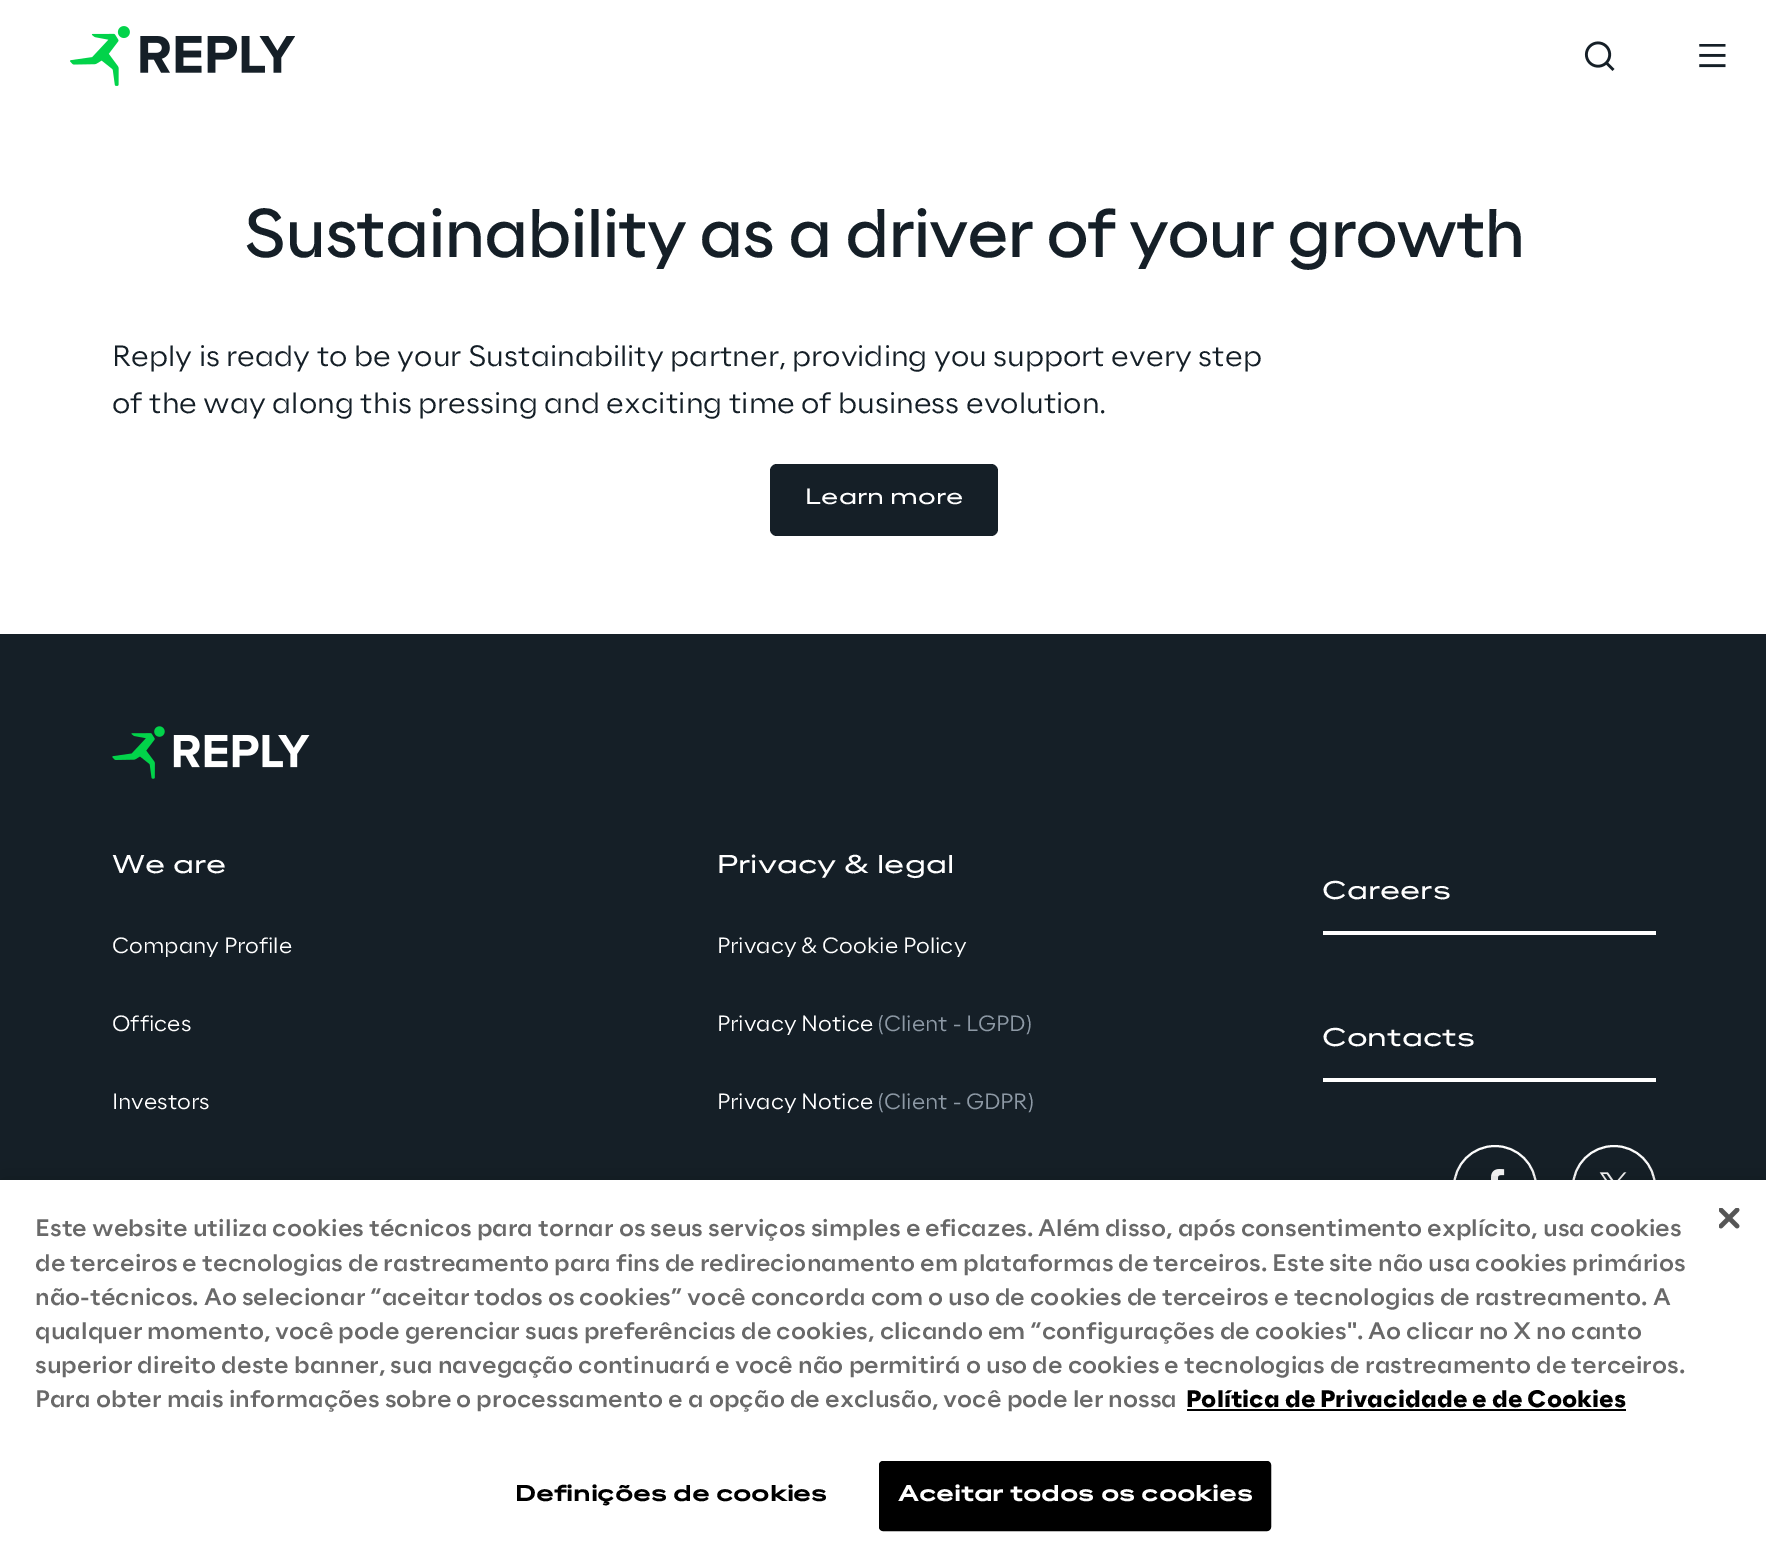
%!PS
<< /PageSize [1766 1566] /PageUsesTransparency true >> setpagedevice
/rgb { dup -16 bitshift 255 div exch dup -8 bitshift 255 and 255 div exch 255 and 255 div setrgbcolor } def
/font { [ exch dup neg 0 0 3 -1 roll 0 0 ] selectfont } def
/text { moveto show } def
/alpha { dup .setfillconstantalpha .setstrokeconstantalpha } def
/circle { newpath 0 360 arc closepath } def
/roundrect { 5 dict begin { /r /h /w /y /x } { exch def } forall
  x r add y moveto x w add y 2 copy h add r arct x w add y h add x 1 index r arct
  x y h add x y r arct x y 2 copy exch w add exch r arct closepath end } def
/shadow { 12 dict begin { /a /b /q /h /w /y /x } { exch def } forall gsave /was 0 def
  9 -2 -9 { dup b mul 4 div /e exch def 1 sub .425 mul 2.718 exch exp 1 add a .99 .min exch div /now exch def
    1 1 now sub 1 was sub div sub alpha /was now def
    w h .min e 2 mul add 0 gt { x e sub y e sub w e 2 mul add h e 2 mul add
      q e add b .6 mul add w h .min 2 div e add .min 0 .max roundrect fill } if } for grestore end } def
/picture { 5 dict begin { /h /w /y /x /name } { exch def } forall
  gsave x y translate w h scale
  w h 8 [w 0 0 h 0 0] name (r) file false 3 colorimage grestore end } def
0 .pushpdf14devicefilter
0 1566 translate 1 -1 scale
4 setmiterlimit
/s1 { /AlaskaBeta-Bold 63 font 16#151F27 rgb } def
/s2 { /AlaskaBeta-Light 28 font 16#151F27 rgb } def
/s3 { /AlaskaBeta-Regular 21 font 16#FFFFFF rgb } def
/s4 { /AlaskaBeta-Regular 24.5 font 16#FFFFFF rgb } def
/s5 { /AlaskaBeta-Light 21 font 16#FFFFFF rgb } def
/s6 { /AlaskaBeta-Light 21 font 16#8D99A5 rgb } def
/s7 { /AlaskaBeta-Medium 22.75 font 16#696969 rgb } def
/s8 { /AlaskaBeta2-Bold 22.75 font 16#000000 rgb } def
16#FFFFFF rgb
0 0 1766 1566 rectfill
(pic1.raw) 70 26 225 60 picture
(pic2.raw) 1584 41 31 30 picture
(pic3.raw) 1699 44 27 24 picture
s1
(Sustainability as a driver of your growth) 243 257 text
s2
(Reply is ready to be your Sustainability partner, providing you support every step) 112 366 text
(of the way along this pressing and exciting time of business evolution.) 112 413 text
770 464 228 72 7 roundrect fill
s3
(Learn more) 805 504 text
16#151F27 rgb
0 634 1766 546 rectfill
(pic4.raw) 112 726 198 53 picture
s4
(We are) 112 873 text
s5
(Company Profile) 112 953 text
(Offices) 112 1031 text
(Investors) 112 1109 text
s4
(Privacy & legal) 717 873 text
s5
(Privacy & Cookie Policy) 717 953 text
(Privacy Notice) 717 1031 text
s6
(\(Client - LGPD\)) 878 1031 text
s5
(Privacy Notice) 717 1109 text
s6
(\(Client - GDPR\)) 878 1109 text
s4
(Careers) 1322 899 text
1323 931 333 4 rectfill
(Contacts) 1322 1046 text
1323 1078 333 4 rectfill
2 setlinewidth
1495 1187 41 circle stroke
(pic5.raw) 1491 1169 14 11 picture
1614 1187 41 circle stroke
(pic6.raw) 1599 1172 28 8 picture
16#000000 rgb
0 1180 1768 386 0 16 0.2 shadow
16#FFFFFF rgb
0 1180 1766 386 rectfill
s7
(Este website utiliza cookies técnicos para tornar os seus serviços simples e eficazes. Além disso, após consentimento explícito, usa cookies) 35 1236 text
(de terceiros e tecnologias de rastreamento para fins de redirecionamento em plataformas de terceiros. Este site não usa cookies primários) 35 1271 text
(não-técnicos. Ao selecionar “aceitar todos os cookies” você concorda com o uso de cookies de terceiros e tecnologias de rastreamento. A) 35 1305 text
(qualquer momento, você pode gerenciar suas preferências de cookies, clicando em “configurações de cookies". Ao clicar no X no canto) 35 1339 text
(superior direito deste banner, sua navegação continuará e você não permitirá o uso de cookies e tecnologias de rastreamento de terceiros.) 35 1373 text
(Para obter mais informações sobre o processamento e a opção de exclusão, você pode ler nossa) 35 1407 text
s8
(Política de Privacidade e de Cookies) 1186 1407 text
1187 1409 439 2 rectfill
/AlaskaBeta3-Bold 21 font
515 1501 moveto 0.25 0 (Definições de cookies) ashow
880 1462 390 68 3 roundrect gsave fill grestore
stroke
16#FFFFFF rgb
898 1501 moveto 0.25 0 (Aceitar todos os cookies) ashow
(pic7.raw) 1719 1208 21 21 picture
.poppdf14devicefilter showpage
